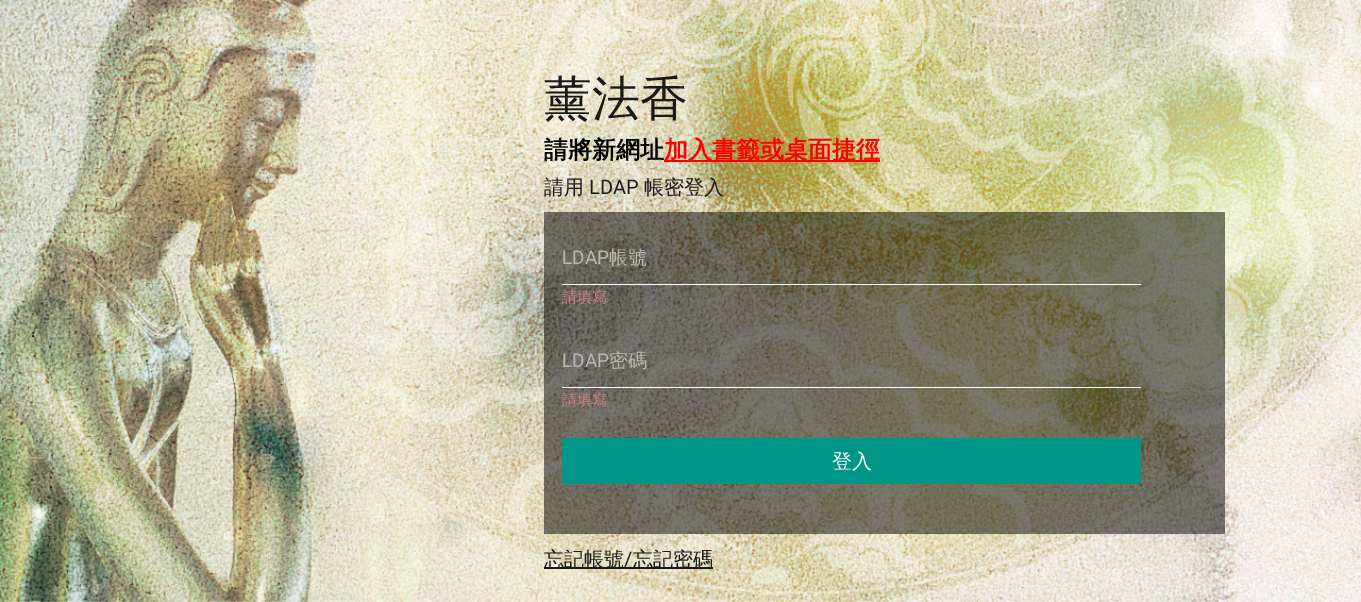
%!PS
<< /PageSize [1361 602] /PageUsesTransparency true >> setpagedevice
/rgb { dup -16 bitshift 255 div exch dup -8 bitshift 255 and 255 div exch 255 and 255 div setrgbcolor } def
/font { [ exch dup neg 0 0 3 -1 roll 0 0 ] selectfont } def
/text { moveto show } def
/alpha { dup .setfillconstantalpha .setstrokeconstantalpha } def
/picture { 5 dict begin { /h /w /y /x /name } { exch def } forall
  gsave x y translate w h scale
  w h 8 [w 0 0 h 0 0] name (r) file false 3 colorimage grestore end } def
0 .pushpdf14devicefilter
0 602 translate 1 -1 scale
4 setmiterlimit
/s1 { /WenQuanYiZenHei-Medium 48 font 16#191919 rgb } def
/s2 { /WenQuanYiZenHei-Bold 24 font 16#000000 rgb } def
/s3 { /WenQuanYiZenHei-Bold 24 font 16#FF0000 rgb } def
/s4 { /WenQuanYiZenHei-Medium 20 font 16#191919 rgb } def
/s5 { /Roboto-Regular 20 font 16#191919 rgb } def
/s6 { /Roboto-Regular 19 font 16#BAB8B4 rgb } def
/s7 { /WenQuanYiZenHei-Medium 19 font 16#BAB8B4 rgb } def
/s8 { /WenQuanYiZenHei-Medium 15 font 16#D3808D rgb } def
/s9 { /WenQuanYiZenHei-Medium 20 font 16#FFFFFF rgb } def
16#FFFFFF rgb
0 0 1361 602 rectfill
(pic1.raw) 0 0 1361 602 picture
s1
(薰法香) 544 115 text
s2
(請將新網址) 544 158 text
16#FF0000 rgb
664 160 216 2 rectfill
(加入書籤或桌面捷徑) 664 158 text
s4
(請用) 544 194 text
s5
(LDAP) 589 194 text
s4
(帳密登入) 644 194 text
0.5 alpha
16#000000 rgb
544 212 681 322 rectfill
1 alpha
16#FFFFFF rgb
562 284 579 1 rectfill
s6
(LDAP) 562 264 text
s7
(帳號) 609 264 text
s8
(請填寫) 562 302 text
16#FFFFFF rgb
562 387 579 1 rectfill
s6
(LDAP) 562 367 text
s7
(密碼) 609 367 text
s8
(請填寫) 562 405 text
16#009688 rgb
562 438 579 46 rectfill
s9
(登入) 832 468 text
16#191919 rgb
544 567 169 2 rectfill
(忘記帳號) 544 566 text
s5
(/) 624 566 text
s4
(忘記密碼) 633 566 text
.poppdf14devicefilter showpage
